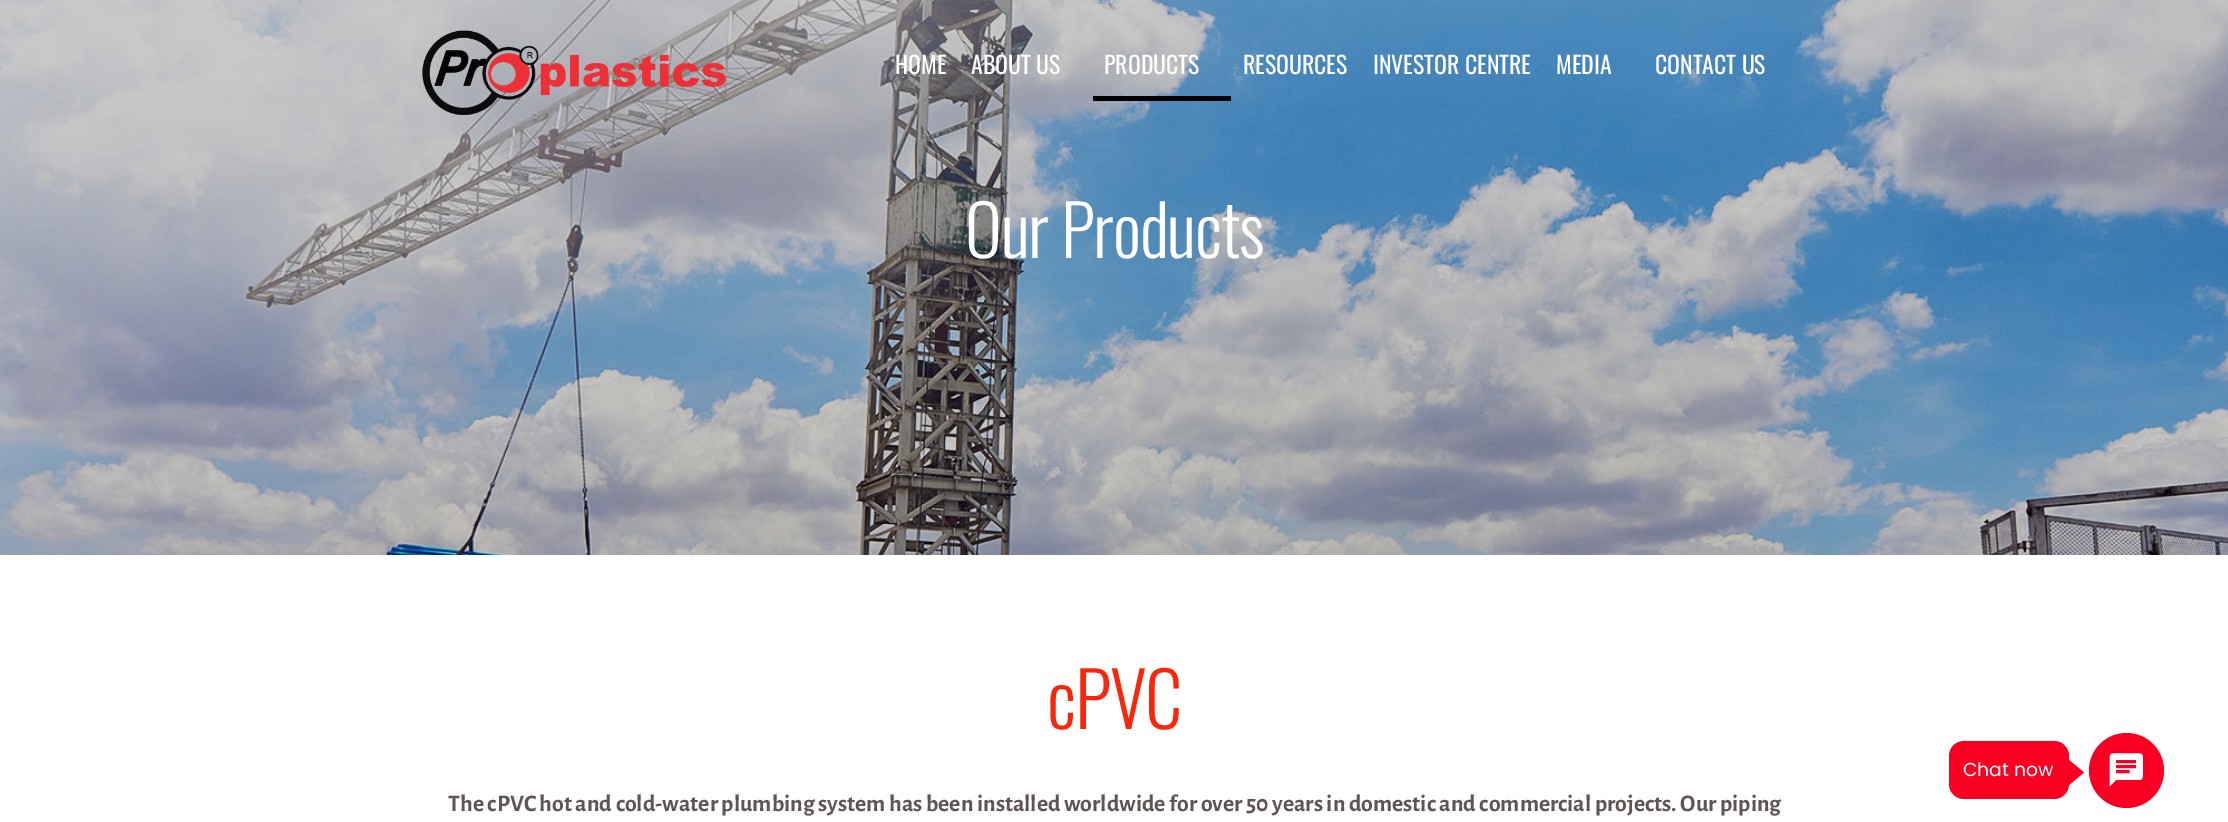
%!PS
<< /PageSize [2228 822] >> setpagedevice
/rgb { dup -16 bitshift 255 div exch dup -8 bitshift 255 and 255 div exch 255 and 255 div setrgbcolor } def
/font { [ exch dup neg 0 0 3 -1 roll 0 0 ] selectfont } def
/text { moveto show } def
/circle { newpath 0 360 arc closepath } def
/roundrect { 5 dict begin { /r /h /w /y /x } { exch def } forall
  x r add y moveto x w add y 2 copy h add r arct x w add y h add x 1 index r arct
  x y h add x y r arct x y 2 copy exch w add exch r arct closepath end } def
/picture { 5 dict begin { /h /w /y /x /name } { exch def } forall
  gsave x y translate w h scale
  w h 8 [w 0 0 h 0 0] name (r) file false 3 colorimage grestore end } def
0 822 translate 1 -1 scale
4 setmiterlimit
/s1 { /Oswald-Regular 23.75 font 16#FFFFFF rgb } def
/s2 { /AlegreyaSans-Bold 23.75 font 16#605554 rgb } def
/s3 { /Poppins-Regular 18.75 font 16#FFFFFF rgb } def
16#FFFFFF rgb
0 0 2228 822 rectfill
(pic2.raw) 0 0 2228 555 picture
(pic1.raw) 422 30 304 85 picture
s1
(HOME) 895 74 text
(ABOUT US) 971 74 text
16#000000 rgb
1093 96 138 5 rectfill
s1
(PRODUCTS) 1104 74 text
(RESOURCES) 1243 74 text
(INVESTOR CENTRE) 1373 74 text
(MEDIA) 1556 74 text
(CONTACT US) 1655 74 text
/Oswald-Light 70 font
965 258 moveto -1.25 0 (Our Products) ashow
/Oswald-Light 75 font
16#FA260B rgb
1047 729 moveto -1.25 0 (cPVC) ashow
s2
(The cPVC hot and cold-water plumbing system has been installed worldwide for over 50 years in domestic and commercial projects. Our piping) 448 811 text
16#F90023 rgb
2126.5 770.5 37.5 circle fill
1949 741 120 58 15 roundrect fill
s3
(Chat now) 1963 776 text
16#F90023 rgb
2069 785 moveto 2069 760 lineto 2084 772.5 lineto closepath fill
(pic3.raw) 2109 753 34 34 picture
showpage
